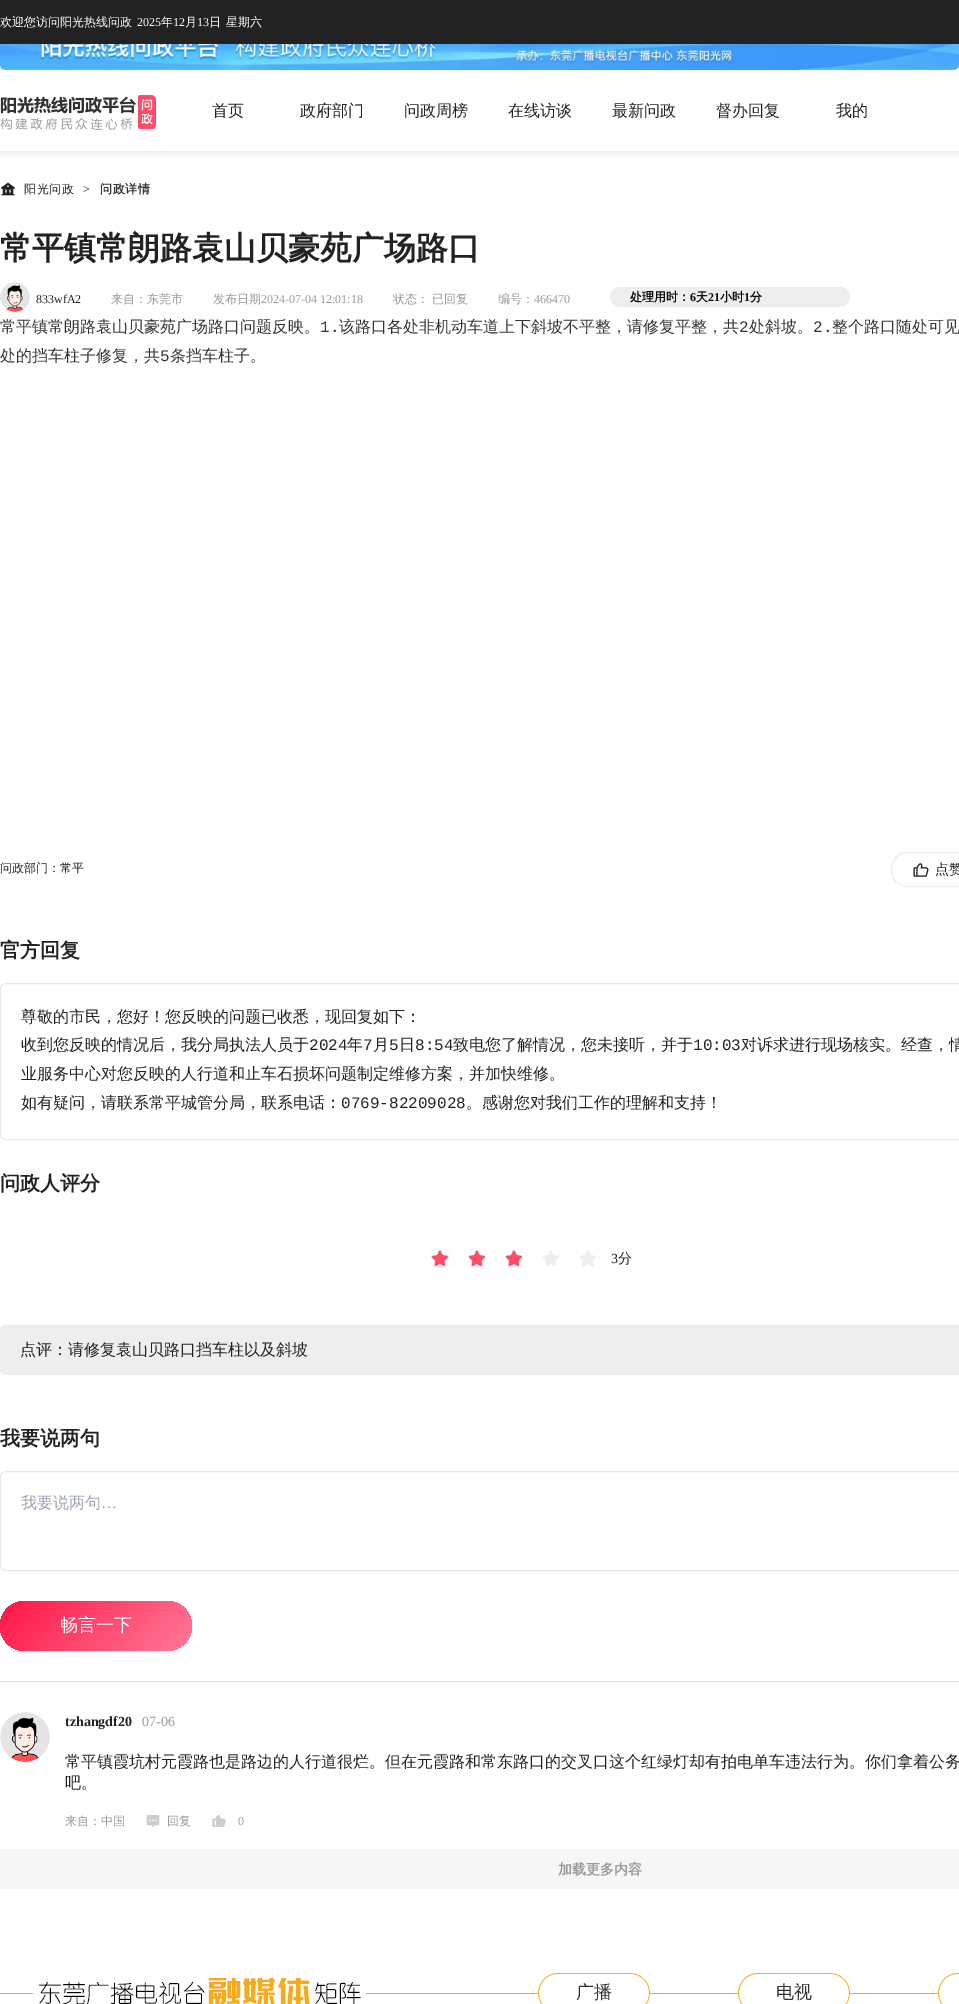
%!PS
<< /PageSize [959 2004] /PageUsesTransparency true >> setpagedevice
/rgb { dup -16 bitshift 255 div exch dup -8 bitshift 255 and 255 div exch 255 and 255 div setrgbcolor } def
/font { [ exch dup neg 0 0 3 -1 roll 0 0 ] selectfont } def
/text { moveto show } def
/alpha { dup .setfillconstantalpha .setstrokeconstantalpha } def
/roundrect { 5 dict begin { /r /h /w /y /x } { exch def } forall
  x r add y moveto x w add y 2 copy h add r arct x w add y h add x 1 index r arct
  x y h add x y r arct x y 2 copy exch w add exch r arct closepath end } def
/shadow { 12 dict begin { /a /b /q /h /w /y /x } { exch def } forall gsave /was 0 def
  9 -2 -9 { dup b mul 4 div /e exch def 1 sub .425 mul 2.718 exch exp 1 add a .99 .min exch div /now exch def
    1 1 now sub 1 was sub div sub alpha /was now def
    w h .min e 2 mul add 0 gt { x e sub y e sub w e 2 mul add h e 2 mul add
      q e add b .6 mul add w h .min 2 div e add .min 0 .max roundrect fill } if } for grestore end } def
/picture { 5 dict begin { /h /w /y /x /name } { exch def } forall
  gsave x y translate w h scale
  w h 8 [w 0 0 h 0 0] name (r) file false 3 colorimage grestore end } def
0 .pushpdf14devicefilter
0 2004 translate 1 -1 scale
4 setmiterlimit
/s1 { /WenQuanYiZenHei-Medium 12 font 16#FFFFFF rgb } def
/s2 { /LiberationSerif-Regular 12 font 16#FFFFFF rgb } def
/s3 { /WenQuanYiZenHei-Medium 16 font 16#222222 rgb } def
/s4 { /WenQuanYiZenHei-Bold 32 font 16#222222 rgb } def
/s5 { /LiberationSerif-Regular 12 font 16#222222 rgb } def
/s6 { /WenQuanYiZenHei-Medium 12 font 16#999999 rgb } def
/s7 { /LiberationSerif-Regular 12 font 16#999999 rgb } def
/s8 { /WenQuanYiZenHei-Bold 12 font 16#0A0A0A rgb } def
/s9 { /LiberationSerif-Bold 12 font 16#0A0A0A rgb } def
/s10 { /WenQuanYiZenHei-Medium 16 font 16#333333 rgb } def
/s11 { /LiberationMono-Regular 16 font 16#333333 rgb } def
/s12 { /WenQuanYiZenHei-Medium 12 font 16#222222 rgb } def
/s13 { /WenQuanYiZenHei-Medium 14 font 16#222222 rgb } def
/s14 { /WenQuanYiZenHei-Bold 20 font 16#222222 rgb } def
/s15 { /LiberationMono-Regular 16 font 16#222222 rgb } def
/s16 { /LiberationSerif-Regular 14 font 16#222222 rgb } def
/s17 { /WenQuanYiZenHei-Medium 16 font 16#9CA3AF rgb } def
/s18 { /LiberationSerif-Regular 16 font 16#9CA3AF rgb } def
/s19 { /WenQuanYiZenHei-Medium 18 font 16#FFFFFF rgb } def
/s20 { /LiberationSerif-Bold 14 font 16#222222 rgb } def
/s21 { /LiberationSerif-Regular 14 font 16#999999 rgb } def
/s22 { /WenQuanYiZenHei-Bold 14 font 16#999999 rgb } def
/s23 { /WenQuanYiZenHei-Medium 18 font 16#333333 rgb } def
16#FFFFFF rgb
0 0 959 2004 rectfill
gsave
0 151 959 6 rectclip
16#000000 rgb
0 12 959 139 0 6 0.12 shadow
grestore
16#222222 rgb
0 0 959 44 rectfill
s1
(欢迎您访问阳光热线问政) 0 26 text
s2
(2025) 137 26 text
s1
(年) 161 26 text
s2
(12) 173 26 text
s1
(月) 185 26 text
s2
(13) 197 26 text
s1
(日) 209 26 text
(星期六) 226 26 text
(pic1.raw) 0 44 959 26 picture
(pic2.raw) 0 95 156 35 picture
s3
(首页) 212 116 text
(政府部门) 300 116 text
(问政周榜) 404 116 text
(在线访谈) 508 116 text
(最新问政) 612 116 text
(督办回复) 716 116 text
(我的) 836 116 text
(pic3.raw) 1 182 14 14 picture
/WenQuanYiZenHei-Medium 12 font
24 193 moveto 0.5 0 (阳光问政) ashow
/LiberationSerif-Regular 12 font
83 193 moveto 0.5 0 (>) ashow
/WenQuanYiZenHei-Bold 12 font
16#333333 rgb
100 193 moveto 0.5 0 (问政详情) ashow
s4
(常平镇常朗路袁山贝豪苑广场路口) 0 259 text
(pic4.raw) 0 282 30 30 picture
s5
(833wfA2) 36 303 text
s6
(来自：东莞市) 111 303 text
(发布日期) 213 303 text
s7
(2024-07-04 12:01:18) 261 303 text
s6
(状态：) 393 303 text
(已回复) 432 303 text
(编号：) 498 303 text
s7
(466470) 534 303 text
16#EEEEEE rgb
610 287 240 20 10 roundrect fill
s8
(处理用时：) 630 301 text
s9
(6) 690 301 text
s8
(天) 696 301 text
s9
(21) 708 301 text
s8
(小时) 720 301 text
s9
(1) 744 301 text
s8
(分) 750 301 text
s10
(常平镇常朗路袁山贝豪苑广场路口问题反映。) 0 332 text
s11
(1.) 320 332 text
s10
(该路口各处非机动车道上下斜坡不平整，请修复平整，共) 339 332 text
s11
(2) 739 332 text
s10
(处斜坡。) 749 332 text
s11
(2.) 813 332 text
s10
(整个路口随处可见) 832 332 text
(处的挡车柱子修复，共) 0 361 text
s11
(5) 160 361 text
s10
(条挡车柱子。) 170 361 text
s12
(问政部门：常平) 0 872 text
16#EEEEEE rgb
891.5 852.5 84 34 15.5 roundrect stroke
(pic5.raw) 913 863 16 14 picture
s13
(点赞) 935 874 text
s14
(官方回复) 0 957 text
16#E9E9E9 rgb
0.5 983.5 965 156 5.5 roundrect stroke
s3
(尊敬的市民，您好！您反映的问题已收悉，现回复如下：) 21 1022 text
(收到您反映的情况后，我分局执法人员于) 21 1050 text
s15
(2024) 309 1050 text
s3
(年) 347 1050 text
s15
(7) 363 1050 text
s3
(月) 373 1050 text
s15
(5) 389 1050 text
s3
(日) 399 1050 text
s15
(8:54) 415 1050 text
s3
(致电您了解情况，您未接听，并于) 453 1050 text
s15
(10:03) 693 1050 text
s3
(对诉求进行现场核实。经查，情) 741 1050 text
(业服务中心对您反映的人行道和止车石损坏问题制定维修方案，并加快维修。) 21 1079 text
(如有疑问，请联系常平城管分局，联系电话：) 21 1108 text
s15
(0769-82209028) 341 1108 text
s3
(。感谢您对我们工作的理解和支持！) 466 1108 text
s14
(问政人评分) 0 1190 text
(pic6.raw) 431 1250 18 17 picture
(pic7.raw) 468 1250 18 17 picture
(pic7.raw) 505 1250 18 17 picture
(pic8.raw) 543 1250 16 16 picture
(pic8.raw) 580 1250 16 16 picture
s16
(3) 611 1263 text
s13
(分) 618 1263 text
16#EEEEEE rgb
0 1325 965 50 6 roundrect fill
s3
(点评：请修复袁山贝路口挡车柱以及斜坡) 20 1355 text
s14
(我要说两句) 0 1445 text
16#E9E9E9 rgb
0.5 1471.5 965 99 5.5 roundrect stroke
s17
(我要说两句) 21 1508 text
s18
(…) 101 1508 text
gsave 0 1601 192 50 25 roundrect clip newpath
<< /ShadingType 2 /ColorSpace /DeviceRGB /Coords [157 1687 36 1566] /Extend [true true] /Function << /FunctionType 2 /Domain [0 1] /C0 [1 0.482 0.604] /C1 [1 0.082 0.267] /N 1 >> >> shfill grestore
s19
(畅言一下) 60 1631 text
16#E1E1E1 rgb
0 1681 959 1 rectfill
(pic9.raw) 0 1712 50 50 picture
s20
(tzhangdf20) 65 1726 text
s21
(07-06) 142 1726 text
s3
(常平镇霞坑村元霞路也是路边的人行道很烂。但在元霞路和常东路口的交叉口这个红绿灯却有拍电单车违法行为。你们拿着公务) 65 1767 text
(吧。) 65 1788 text
s6
(来自：中国) 65 1825 text
(pic10.raw) 146 1815 14 12 picture
(回复) 167 1825 text
(pic11.raw) 212 1815 14 12 picture
s7
(0) 238 1825 text
16#F6F6F6 rgb
0 1849 959 40 rectfill
s22
(加载更多内容) 558 1874 text
(pic12.raw) 0 1978 945 26 picture
(pic13.raw) 538 1973 112 31 picture
s23
(广播) 576 1998 text
(pic13.raw) 738 1973 112 31 picture
(电视) 776 1998 text
(pic14.raw) 938 1973 21 31 picture
.poppdf14devicefilter showpage
